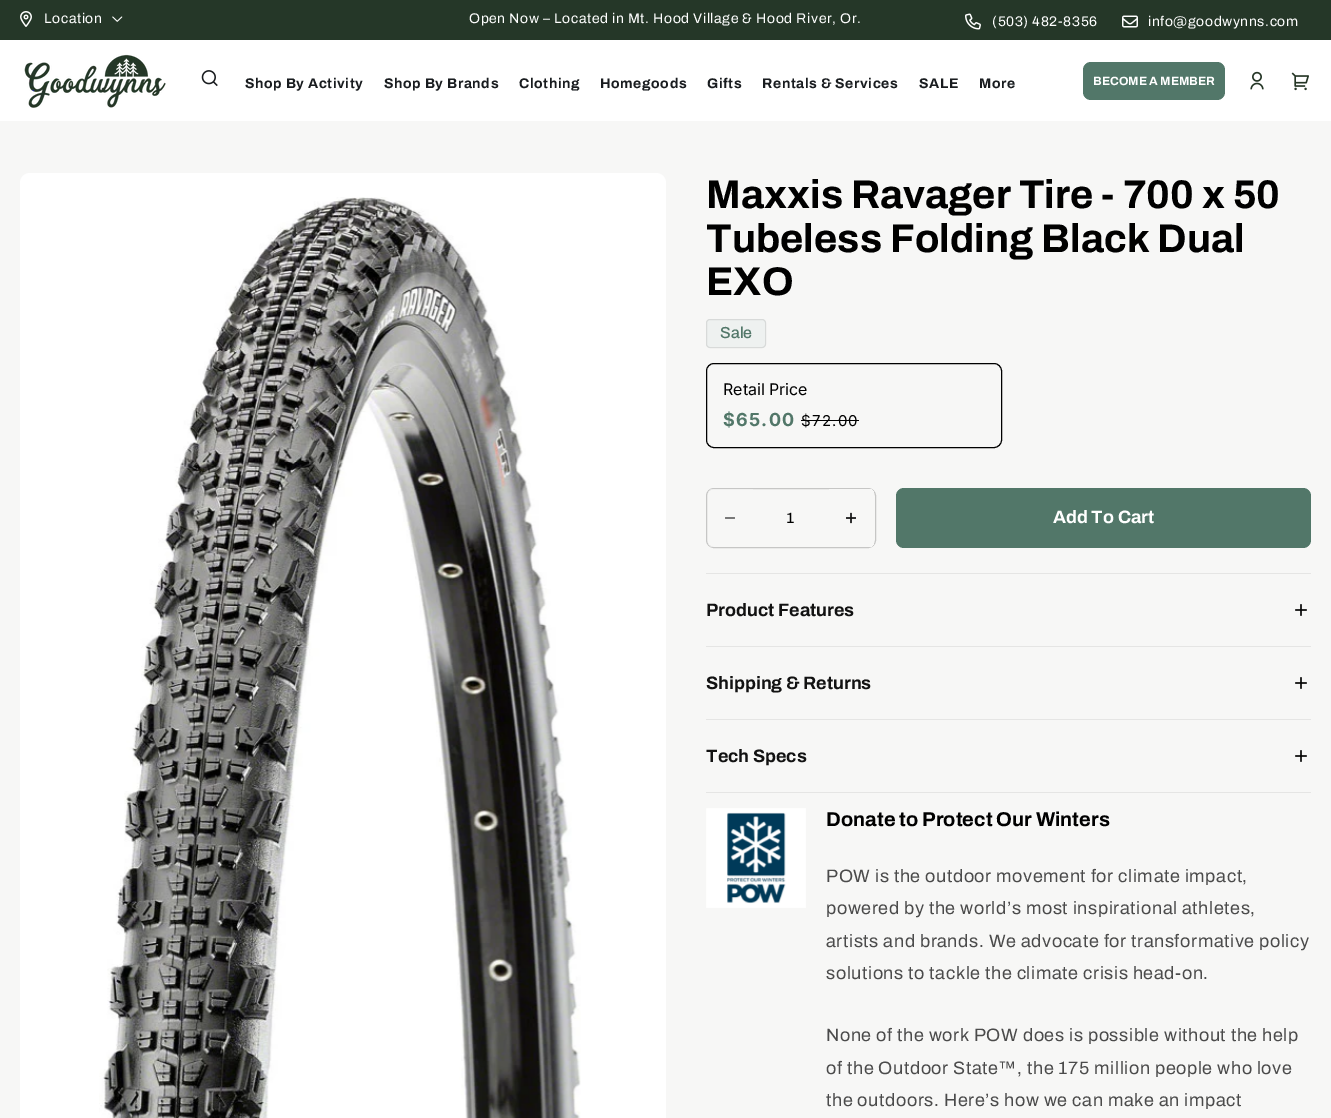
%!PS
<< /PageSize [1331 1118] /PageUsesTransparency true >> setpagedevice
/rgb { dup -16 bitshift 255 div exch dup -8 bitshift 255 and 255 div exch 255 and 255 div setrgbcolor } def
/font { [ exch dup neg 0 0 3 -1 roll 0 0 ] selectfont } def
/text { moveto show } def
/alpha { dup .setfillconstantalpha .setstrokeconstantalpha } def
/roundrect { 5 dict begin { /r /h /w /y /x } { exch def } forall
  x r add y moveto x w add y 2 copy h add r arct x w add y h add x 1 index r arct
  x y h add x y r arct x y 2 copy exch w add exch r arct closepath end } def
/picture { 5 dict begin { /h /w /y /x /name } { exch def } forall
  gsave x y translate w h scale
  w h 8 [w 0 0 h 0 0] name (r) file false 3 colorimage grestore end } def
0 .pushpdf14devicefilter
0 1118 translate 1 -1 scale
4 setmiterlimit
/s1 { /Archivo-Bold 12 font 16#FFFFFF rgb } def
/s2 { /Archivo-Bold 40 font 16#000000 rgb } def
/s3 { /Archivo-Medium 16 font 16#527769 rgb } def
/s4 { /Inter-Regular 16 font 16#000000 rgb } def
/s5 { /Archivo-Medium 15 font 16#000000 rgb } def
/s6 { /Archivo-Bold 18 font 16#FFFFFF rgb } def
/s7 { /Archivo-Bold 18 font 16#121212 rgb } def
/s8 { /Archivo-Bold 20 font 16#000000 rgb } def
16#FFFFFF rgb
0 0 1331 1118 rectfill
16#253728 rgb
0 0 1331 40 rectfill
(pic1.raw) 20 11 12 16 picture
/Archivo-Regular 14 font
16#FFFFFF rgb
44 23 moveto 0.6 0 (Location) ashow
(pic2.raw) 112 16 11 6 picture
469 23 moveto 0.6 0 (Open Now – Located in Mt. Hood Village & Hood River, Or.) ashow
(pic3.raw) 965 13 16 17 picture
992 26 moveto 0.6 0 (\(503\) 482-8356) ashow
(pic4.raw) 1122 15 16 13 picture
1148 26 moveto 0.6 0 (info@goodwynns.com) ashow
(pic5.raw) 24 54 142 54 picture
(pic6.raw) 201 70 17 17 picture
/Archivo-Bold 14 font
16#191C1F rgb
245 88 moveto 0.6 0 (Shop By Activity) ashow
384 88 moveto 0.6 0 (Shop By Brands) ashow
519 88 moveto 0.6 0 (Clothing) ashow
600 88 moveto 0.6 0 (Homegoods) ashow
707 88 moveto 0.6 0 (Gifts) ashow
762 88 moveto 0.6 0 (Rentals & Services) ashow
919 88 moveto 0.6 0 (SALE) ashow
979 88 moveto 0.6 0 (More) ashow
16#527769 rgb
1083 62 142 38 8 roundrect fill
s1
(BECOME A MEMBER) 1093 85 text
(pic7.raw) 1250 71 14 19 picture
(pic8.raw) 1291 72 18 19 picture
16#F7F7F6 rgb
0 121 1331 997 rectfill
16#FFFFFF rgb
20 173 646 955 10 roundrect fill
(pic9.raw) 99 197 482 921 picture
s2
(Maxxis Ravager Tire - 700 x 50) 706 208 text
(Tubeless Folding Black Dual) 706 252 text
(EXO) 706 295 text
16#EEF1F0 rgb
706 319 60 29 4 roundrect fill
0.1 alpha
16#121212 rgb
706.5 319.5 59 28 3.5 roundrect stroke
1 alpha
s3
(Sale) 720 338 text
16#000000 rgb
706.5 363.5 295 84 7.5 roundrect stroke
s4
(Retail Price) 723 395 text
/Inter-Bold 18 font
16#527769 rgb
723 426 moveto 1.25 0 ($65.00) ashow
/Inter-Regular 15 font
16#000000 rgb
801 426 moveto 1.25 0 ($72.00) ashow
801 420 58 1 rectfill
16#C6C6C5 rgb
706.5 488.5 169 59 7.5 roundrect stroke
gsave
707 489 168 58 7 roundrect clip newpath
0.5 alpha
16#F7F7F6 rgb
708 489 45 58 rectfill
grestore
(pic10.raw) 725 517 10 2 picture
s5
(1) 786 523 text
gsave
707 489 168 58 7 roundrect clip newpath
16#F7F7F6 rgb
829 489 45 58 rectfill
grestore
(pic11.raw) 846 512 10 12 picture
16#527769 rgb
896 488 415 60 8 roundrect fill
s6
(Add To Cart) 1053 523 text
16#E5E5E4 rgb
706 573 605 1 rectfill
706 646 605 1 rectfill
s7
(Product Features) 706 616 text
(pic12.raw) 1295 604 12 12 picture
16#E5E5E4 rgb
706 719 605 1 rectfill
s7
(Shipping & Returns) 706 689 text
(pic12.raw) 1295 677 12 12 picture
16#E5E5E4 rgb
706 792 605 1 rectfill
s7
(Tech Specs) 706 762 text
(pic12.raw) 1295 750 12 12 picture
(pic13.raw) 706 808 100 100 picture
s8
(Donate to Protect Our Winters) 826 826 text
/Archivo-Regular 18 font
16#4B4B4B rgb
826 882 moveto 0.6 0 (POW is the outdoor movement for climate impact,) ashow
826 914 moveto 0.6 0 (powered by the world’s most inspirational athletes,) ashow
826 947 moveto 0.6 0 (artists and brands. We advocate for transformative policy) ashow
826 979 moveto 0.6 0 (solutions to tackle the climate crisis head-on.) ashow
826 1041 moveto 0.6 0 (None of the work POW does is possible without the help) ashow
826 1074 moveto 0.6 0 (of the Outdoor State) ashow
/LiberationSans-Regular 18 font
998 1074 moveto 0.6 0 (™) ashow
/Archivo-Regular 18 font
1017 1074 moveto 0.6 0 (, the 175 million people who love) ashow
826 1106 moveto 0.6 0 (the outdoors. Here’s how we can make an impact) ashow
.poppdf14devicefilter showpage
